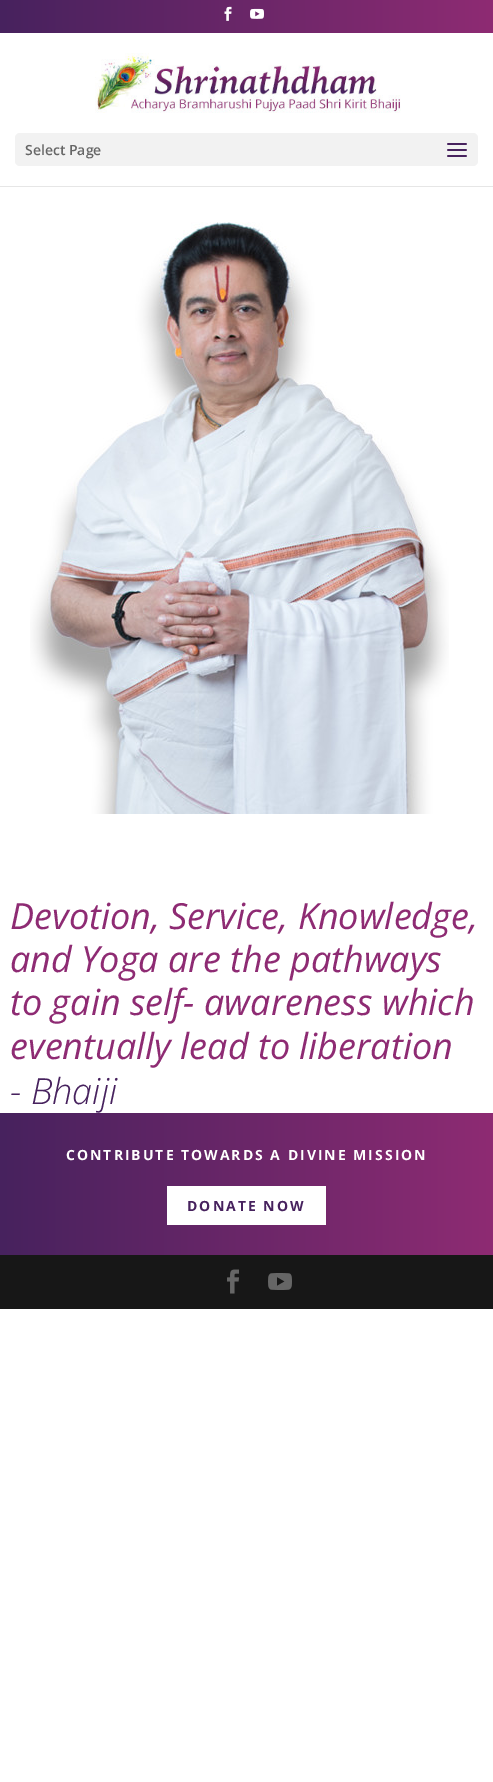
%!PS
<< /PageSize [493 1782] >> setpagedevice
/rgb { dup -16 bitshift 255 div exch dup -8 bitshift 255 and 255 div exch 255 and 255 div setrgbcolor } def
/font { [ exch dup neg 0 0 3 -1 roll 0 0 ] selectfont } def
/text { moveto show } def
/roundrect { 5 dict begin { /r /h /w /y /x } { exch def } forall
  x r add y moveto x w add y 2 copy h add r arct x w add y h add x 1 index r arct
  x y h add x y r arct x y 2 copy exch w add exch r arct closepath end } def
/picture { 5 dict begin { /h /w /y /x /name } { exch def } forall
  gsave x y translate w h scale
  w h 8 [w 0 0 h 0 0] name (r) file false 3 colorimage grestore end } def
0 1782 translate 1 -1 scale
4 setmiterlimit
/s1 { /OpenSans-SemiBold 14 font 16#666666 rgb } def
/s2 { /OpenSans-Italic 36 font 16#8E2B73 rgb } def
/s3 { /OpenSans-LightItalic 36 font 16#47225E rgb } def
16#FFFFFF rgb
0 0 493 1782 rectfill
gsave 0 0 moveto 493 0 lineto 493 33 lineto 0 33 lineto closepath clip newpath
<< /ShadingType 2 /ColorSpace /DeviceRGB /Coords [0 17 493 16] /Extend [true true] /Function << /FunctionType 2 /Domain [0 1] /C0 [0.278 0.133 0.369] /C1 [0.557 0.169 0.451] /N 1 >> >> shfill grestore
(pic1.raw) 224 6 8 15 picture
(pic2.raw) 250 8 14 11 picture
16#E6E6E6 rgb
0 186 493 1 rectfill
(pic3.raw) 95 53 306 60 picture
16#F2F2F2 rgb
15 133 463 33 5 roundrect fill
s1
(Select Page) 25 155 text
(pic4.raw) 447 143 20 14 picture
(pic5.raw) 30 222 419 592 picture
s2
(Devotion, Service, Knowledge,) 10 929 text
(and Yoga are the pathways) 10 972 text
(to gain self- awareness which) 10 1015 text
(eventually lead to liberation) 10 1059 text
s3
(- Bhaiji) 10 1104 text
gsave 0 1113 moveto 493 1113 lineto 493 1255 lineto 0 1255 lineto closepath clip newpath
<< /ShadingType 2 /ColorSpace /DeviceRGB /Coords [0 1184 493 1184] /Extend [true true] /Function << /FunctionType 2 /Domain [0 1] /C0 [0.278 0.133 0.369] /C1 [0.557 0.169 0.451] /N 1 >> >> shfill grestore
/OpenSans-Bold 14 font
16#FFFFFF rgb
66 1160 moveto 2 0 (CONTRIBUTE TOWARDS A DIVINE MISSION) ashow
167 1186 159 39 rectfill
16#47225E rgb
187 1211 moveto 2 0 (DONATE NOW) ashow
16#171717 rgb
0 1255 493 54 rectfill
(pic6.raw) 227 1269 12 25 picture
(pic7.raw) 268 1273 24 17 picture
showpage
